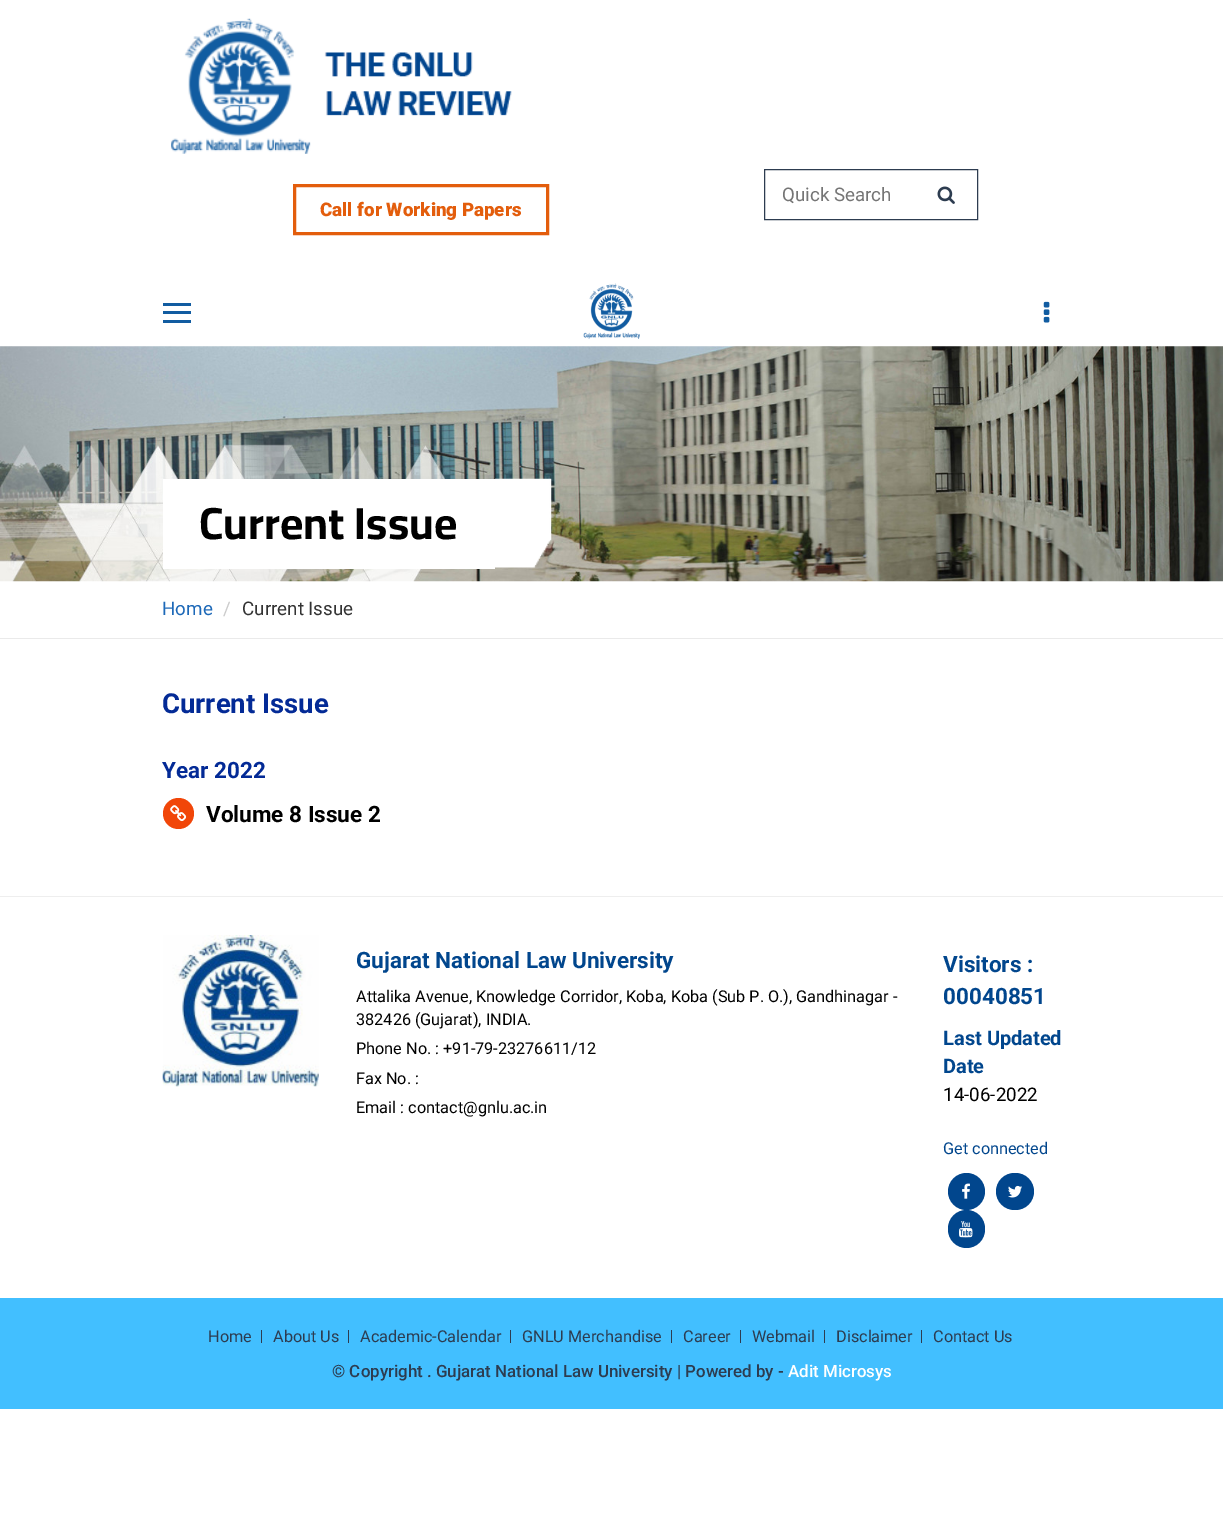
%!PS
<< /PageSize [1223 1539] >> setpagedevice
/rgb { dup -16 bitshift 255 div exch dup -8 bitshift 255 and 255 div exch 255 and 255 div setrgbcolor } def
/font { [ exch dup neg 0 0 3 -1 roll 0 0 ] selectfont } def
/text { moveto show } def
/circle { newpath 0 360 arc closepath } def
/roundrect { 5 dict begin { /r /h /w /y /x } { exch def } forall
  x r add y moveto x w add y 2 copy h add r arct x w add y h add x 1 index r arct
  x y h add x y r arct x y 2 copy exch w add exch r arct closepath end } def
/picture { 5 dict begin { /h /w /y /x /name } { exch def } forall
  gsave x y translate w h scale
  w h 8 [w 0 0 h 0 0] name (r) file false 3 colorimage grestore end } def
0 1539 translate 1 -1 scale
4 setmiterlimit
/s1 { /Roboto-Regular 18.75 font 16#757575 rgb } def
/s2 { /Roboto-Black 18.75 font 16#E35D0C rgb } def
/s3 { /Cairo-Bold 45 font 16#000000 rgb } def
/s4 { /Roboto-Regular 18.75 font 16#1D69B8 rgb } def
/s5 { /Roboto-Regular 18.75 font 16#CCCCCC rgb } def
/s6 { /Roboto-Regular 18.75 font 16#333333 rgb } def
/s7 { /Roboto-Bold 27.5 font 16#032A96 rgb } def
/s8 { /Roboto-Bold 22.5 font 16#032A96 rgb } def
/s9 { /Roboto-Bold 22.5 font 16#000000 rgb } def
/s10 { /Roboto-Bold 22.5 font 16#01468D rgb } def
/s11 { /Roboto-Regular 16.25 font 16#000000 rgb } def
/s12 { /Roboto-Bold 20 font 16#01468D rgb } def
/s13 { /Roboto-Regular 18.75 font 16#000000 rgb } def
/s14 { /Roboto-Regular 16.25 font 16#01468D rgb } def
/s15 { /Roboto-Regular 16.25 font 16#2D3C50 rgb } def
/s16 { /Roboto-Medium 16.9 font 16#2D3C50 rgb } def
/s17 { /Roboto-Medium 16.9 font 16#FFFFFF rgb } def
16#FFFFFF rgb
0 0 1223 1539 rectfill
(pic1.raw) 171 18 341 136 picture
16#2D3C50 rgb
764.5 169.5 213 50 rectstroke
s1
(Quick Search) 782 201 text
(pic2.raw) 937 186 18 18 picture
16#E35D0C rgb
3 setlinewidth
294.5 185.5 253 48 rectstroke
s2
(Call for Working Papers) 320 216 text
16#115CA1 rgb
163 311 28 3 rectfill
163 303 28 3 rectfill
163 320 28 3 rectfill
(pic3.raw) 583 283 57 56 picture
(pic4.raw) 1043 301 7 22 picture
(pic5.raw) 0 346 1223 236 picture
16#FFFFFF rgb
163 479 332 90 rectfill
s3
(Current Issue) 199 539 text
(pic6.raw) 495 478 57 90 picture
16#EAEAEA rgb
0 638 1223 1 rectfill
s4
(Home) 162 615 text
s5
(/) 223 615 text
s6
(Current Issue) 242 615 text
s7
(Current Issue) 162 713 text
s8
(Year 2022) 162 778 text
16#F14609 rgb
178.5 813.5 15.5 circle fill
(pic7.raw) 170 805 17 17 picture
s9
(Volume 8 Issue 2) 206 822 text
16#EEEEEE rgb
0 896 1223 1 rectfill
(pic8.raw) 162 935 157 152 picture
s10
(Gujarat National Law University) 356 968 text
s11
(Attalika Avenue, Knowledge Corridor, Koba, Koba \(Sub P. O.\), Gandhinagar -) 356 1002 text
(382426 \(Gujarat\), INDIA.) 356 1025 text
(Phone No. : +91-79-23276611/12) 356 1054 text
(Fax No. :) 356 1084 text
(Email : contact@gnlu.ac.in) 356 1113 text
s10
(Visitors :) 943 972 text
(00040851) 943 1004 text
s12
(Last Updated) 943 1045 text
(Date) 943 1073 text
s13
(14-06-2022) 943 1101 text
s14
(Get connected) 943 1154 text
966.5 1191.5 18.5 circle fill
(pic9.raw) 962 1183 8 16 picture
996 1173 38 37 18.5 roundrect fill
(pic10.raw) 1008 1185 14 13 picture
948 1210 37 38 18.5 roundrect fill
(pic11.raw) 959 1221 14 17 picture
16#42BFFF rgb
0 1298 1223 111 rectfill
16#2D3C50 rgb
261 1330 1 13 rectfill
(Home) 208 1342 text
348 1330 1 13 rectfill
(About Us) 273 1342 text
510 1330 1 13 rectfill
(Academic-Calendar) 360 1342 text
671 1330 1 13 rectfill
(GNLU Merchandise) 522 1342 text
740 1330 1 13 rectfill
(Career) 683 1342 text
824 1330 1 13 rectfill
(Webmail) 752 1342 text
921 1330 1 13 rectfill
(Disclaimer) 836 1342 text
(Contact Us) 933 1342 text
s16
(© Copyright . Gujarat National Law University | Powered by -) 332 1377 text
s17
(Adit Microsys) 788 1377 text
showpage
